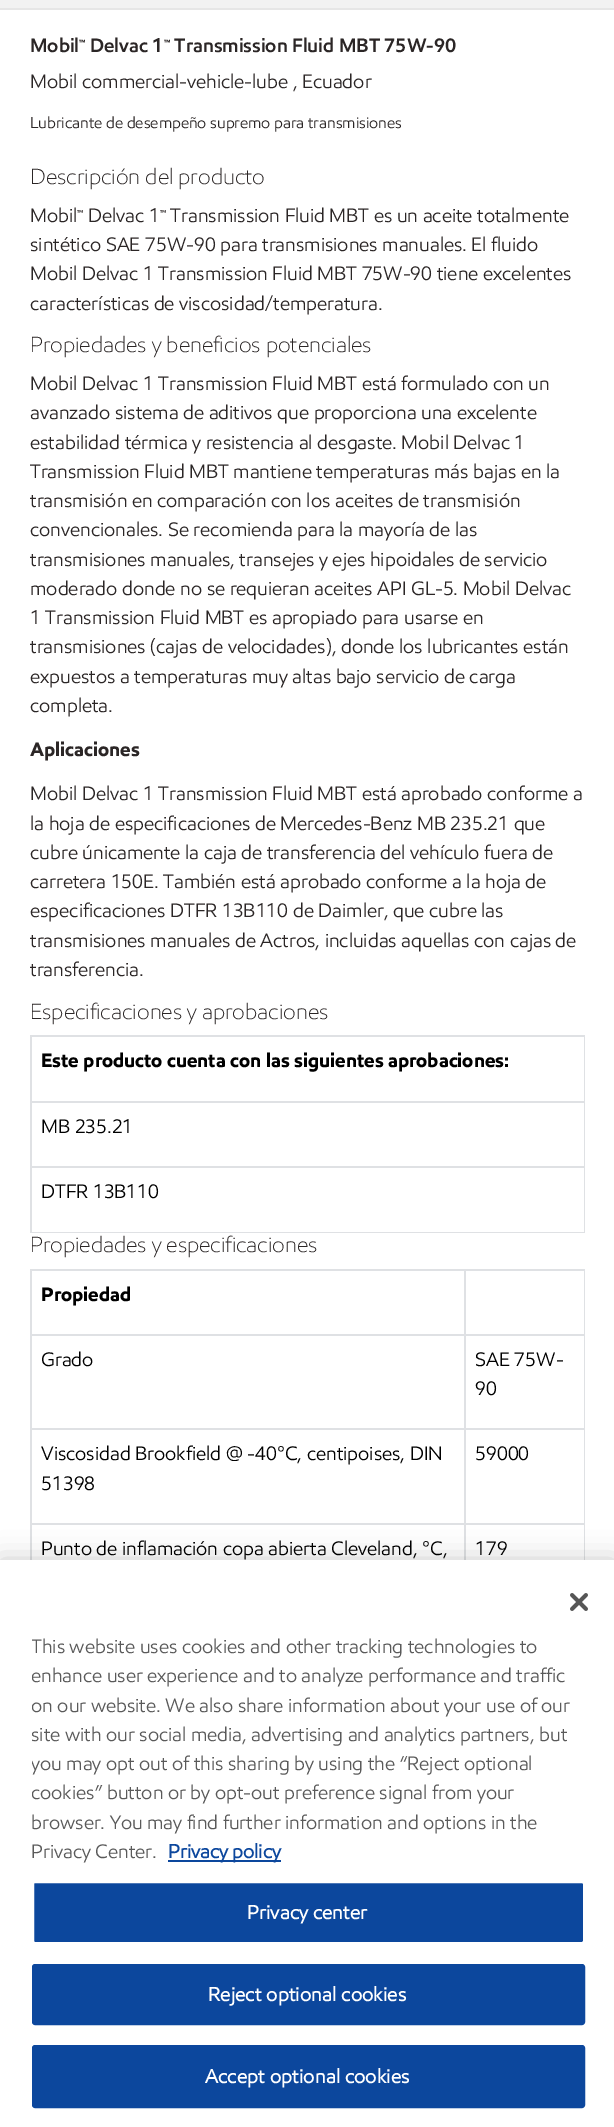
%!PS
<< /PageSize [614 2127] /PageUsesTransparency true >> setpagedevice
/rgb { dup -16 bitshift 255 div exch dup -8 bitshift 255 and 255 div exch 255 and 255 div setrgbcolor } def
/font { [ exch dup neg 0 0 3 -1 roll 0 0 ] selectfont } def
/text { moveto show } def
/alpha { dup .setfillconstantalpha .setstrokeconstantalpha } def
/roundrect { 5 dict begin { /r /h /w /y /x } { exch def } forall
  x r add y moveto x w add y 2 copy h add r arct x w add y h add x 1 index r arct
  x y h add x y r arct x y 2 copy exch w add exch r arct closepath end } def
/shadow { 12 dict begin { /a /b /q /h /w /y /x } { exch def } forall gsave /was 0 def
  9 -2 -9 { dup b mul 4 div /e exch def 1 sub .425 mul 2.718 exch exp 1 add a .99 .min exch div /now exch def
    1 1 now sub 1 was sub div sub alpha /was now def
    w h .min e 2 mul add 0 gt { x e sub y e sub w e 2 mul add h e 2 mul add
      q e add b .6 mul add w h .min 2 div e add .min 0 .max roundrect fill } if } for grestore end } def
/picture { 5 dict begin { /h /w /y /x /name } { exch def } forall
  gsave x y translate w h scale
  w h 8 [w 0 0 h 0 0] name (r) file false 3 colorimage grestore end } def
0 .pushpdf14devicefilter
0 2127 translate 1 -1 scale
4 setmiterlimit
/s1 { /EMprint-SemiBold 19.5 font 16#2B2626 rgb } def
/s2 { /EMprint-Regular 19.5 font 16#2B2626 rgb } def
/s3 { /EMprint-Regular 15.8 font 16#2B2626 rgb } def
/s4 { /EMprint-Light 22 font 16#2B2626 rgb } def
/s5 { /EMprint-Bold 19.5 font 16#2B2626 rgb } def
/s6 { /EMprint-Bold 19.5 font 16#000000 rgb } def
/s7 { /EMprint-Regular 19.5 font 16#000000 rgb } def
/s8 { /EMprint-Regular 19.5 font 16#5A5A5A rgb } def
/s9 { /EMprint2-Bold 19.5 font 16#0C479D rgb } def
16#FFFFFF rgb
0 0 614 2127 rectfill
16#F2F2F2 rgb
0 0 614 8 rectfill
16#E6E6E6 rgb
0 8 614 2 rectfill
s1
(Mobil™ Delvac 1™ Transmission Fluid MBT 75W-90) 30 52 text
s2
(Mobil commercial-vehicle-lube , Ecuador) 30 88 text
s3
(Lubricante de desempeño supremo para transmisiones) 30 128 text
s4
(Descripción del producto) 30 184 text
s2
(Mobil™ Delvac 1™ Transmission Fluid MBT es un aceite totalmente) 30 222 text
(sintético SAE 75W-90 para transmisiones manuales. El fluido) 30 251 text
(Mobil Delvac 1 Transmission Fluid MBT 75W-90 tiene excelentes) 30 280 text
(características de viscosidad/temperatura.) 30 310 text
s4
(Propiedades y beneficios potenciales) 30 352 text
s2
(Mobil Delvac 1 Transmission Fluid MBT está formulado con un) 30 390 text
(avanzado sistema de aditivos que proporciona una excelente) 30 419 text
(estabilidad térmica y resistencia al desgaste. Mobil Delvac 1) 30 449 text
(Transmission Fluid MBT mantiene temperaturas más bajas en la) 30 478 text
(transmisión en comparación con los aceites de transmisión) 30 507 text
(convencionales. Se recomienda para la mayoría de las) 30 536 text
(transmisiones manuales, transejes y ejes hipoidales de servicio) 30 566 text
(moderado donde no se requieran aceites API GL-5. Mobil Delvac) 30 595 text
(1 Transmission Fluid MBT es apropiado para usarse en) 30 624 text
(transmisiones \(cajas de velocidades\), donde los lubricantes están) 30 653 text
(expuestos a temperaturas muy altas bajo servicio de carga) 30 683 text
(completa.) 30 712 text
s5
(Aplicaciones) 30 756 text
s2
(Mobil Delvac 1 Transmission Fluid MBT está aprobado conforme a) 30 800 text
(la hoja de especificaciones de Mercedes-Benz MB 235.21 que) 30 830 text
(cubre únicamente la caja de transferencia del vehículo fuera de) 30 859 text
(carretera 150E. También está aprobado conforme a la hoja de) 30 888 text
(especificaciones DTFR 13B110 de Daimler, que cubre las) 30 917 text
(transmisiones manuales de Actros, incluidas aquellas con cajas de) 30 947 text
(transferencia.) 30 976 text
s4
(Especificaciones y aprobaciones) 30 1019 text
16#DFE1E4 rgb
30 1035 555 2 rectfill
30 1101 555 2 rectfill
30 1166 555 2 rectfill
584 1166 1 67 rectfill
584 1101 1 66 rectfill
584 1035 1 68 rectfill
30 1232 555 1 rectfill
30 1166 2 67 rectfill
30 1101 2 66 rectfill
30 1035 2 68 rectfill
s6
(Este producto cuenta con las siguientes aprobaciones:) 41 1067 text
s7
(MB 235.21) 41 1133 text
(DTFR 13B110) 41 1198 text
s4
(Propiedades y especificaciones) 30 1252 text
16#DFE1E4 rgb
464 1269 121 2 rectfill
464 1334 121 2 rectfill
464 1428 121 2 rectfill
464 1523 121 2 rectfill
464 1523 2 37 rectfill
30 1523 435 2 rectfill
464 1428 2 96 rectfill
30 1428 435 2 rectfill
464 1334 2 96 rectfill
30 1334 435 2 rectfill
464 1269 2 66 rectfill
30 1269 435 2 rectfill
30 1523 2 37 rectfill
30 1428 2 96 rectfill
30 1334 2 96 rectfill
30 1269 2 66 rectfill
s6
(Propiedad) 41 1301 text
16#DFE1E4 rgb
584 1523 1 37 rectfill
584 1428 1 96 rectfill
584 1334 1 96 rectfill
584 1269 1 66 rectfill
s7
(Grado) 41 1366 text
(SAE 75W-) 475 1366 text
(90) 475 1395 text
(Viscosidad Brookfield @ -40°C, centipoises, DIN) 41 1460 text
(51398) 41 1490 text
(59000) 475 1460 text
(Punto de inflamación copa abierta Cleveland, °C,) 41 1555 text
(179) 475 1555 text
0 1560 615 567 0 13.5 0.2 shadow
16#FFFFFF rgb
0 1560 614 567 rectfill
(pic1.raw) 570 1593 18 18 picture
gsave
32 1632 553 234 rectclip
s8
(This website uses cookies and other tracking technologies to) 31 1653 text
(enhance user experience and to analyze performance and traffic) 31 1682 text
(on our website. We also share information about your use of our) 31 1712 text
(site with our social media, advertising and analytics partners, but) 31 1741 text
(you may opt out of this sharing by using the “Reject optional) 31 1770 text
(cookies” button or by opt-out preference signal from your) 31 1799 text
grestore
s8
(browser. You may find further information and options in the) 31 1829 text
(Privacy Center.) 31 1858 text
16#0C479D rgb
168 1860 113 2 rectfill
s9
(Privacy policy) 168 1858 text
33 1882 551 61 2 roundrect gsave fill grestore
16#FFFFFF rgb
2 setlinewidth
stroke
247 1919 moveto 0.2 0 (Privacy center) ashow
16#0C479D rgb
33 1965 551 59 2 roundrect gsave fill grestore
stroke
16#FFFFFF rgb
208 2001 moveto 0.2 0 (Reject optional cookies) ashow
16#0C479D rgb
33 2046 551 61 2 roundrect gsave fill grestore
stroke
16#FFFFFF rgb
205 2083 moveto 0.2 0 (Accept optional cookies) ashow
.poppdf14devicefilter showpage
